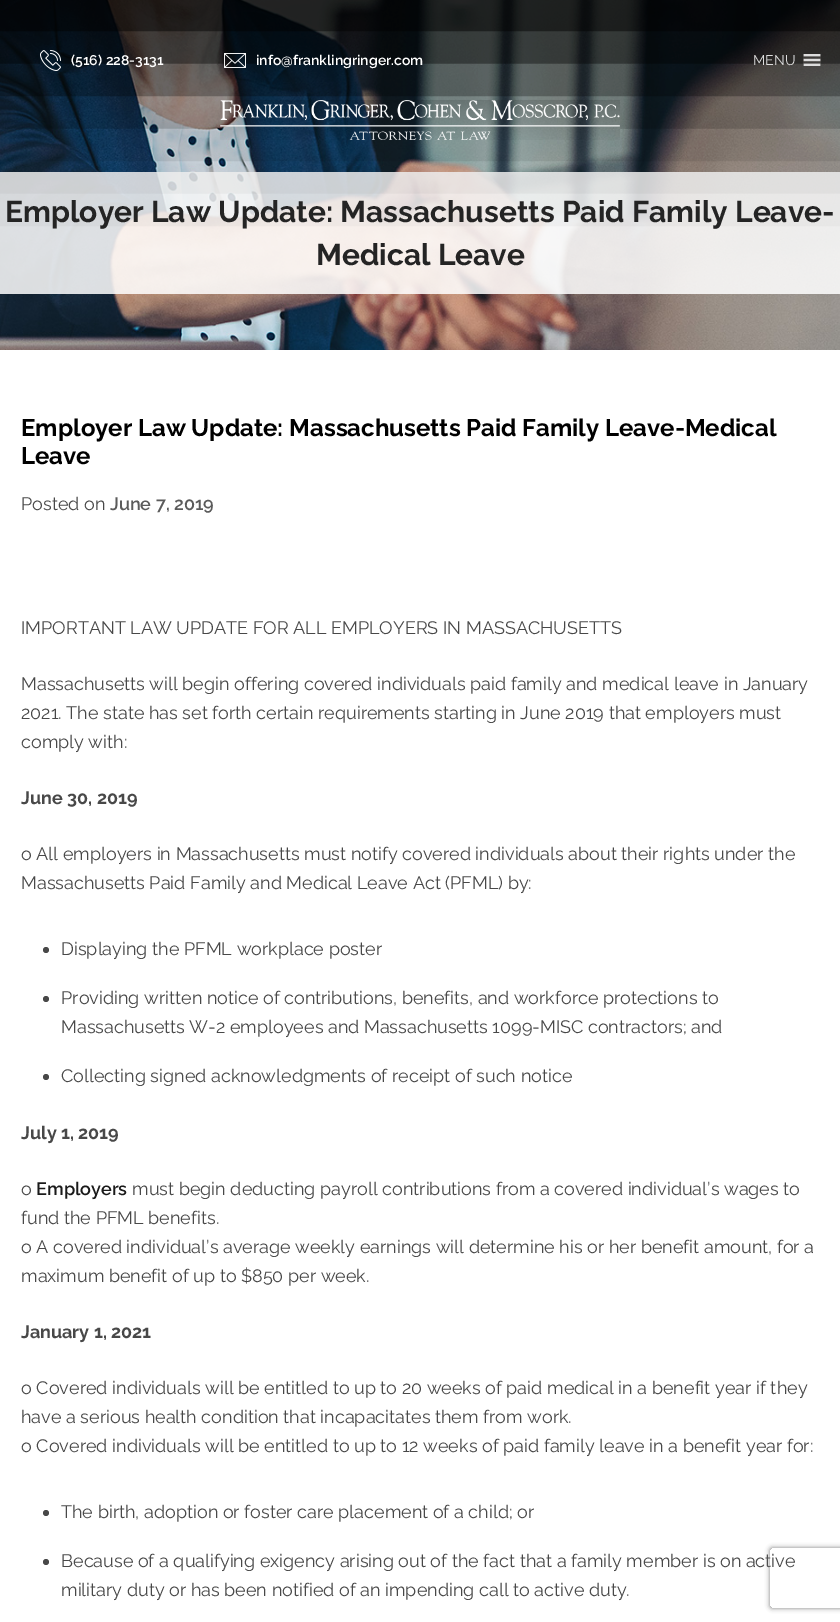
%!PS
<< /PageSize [840 1622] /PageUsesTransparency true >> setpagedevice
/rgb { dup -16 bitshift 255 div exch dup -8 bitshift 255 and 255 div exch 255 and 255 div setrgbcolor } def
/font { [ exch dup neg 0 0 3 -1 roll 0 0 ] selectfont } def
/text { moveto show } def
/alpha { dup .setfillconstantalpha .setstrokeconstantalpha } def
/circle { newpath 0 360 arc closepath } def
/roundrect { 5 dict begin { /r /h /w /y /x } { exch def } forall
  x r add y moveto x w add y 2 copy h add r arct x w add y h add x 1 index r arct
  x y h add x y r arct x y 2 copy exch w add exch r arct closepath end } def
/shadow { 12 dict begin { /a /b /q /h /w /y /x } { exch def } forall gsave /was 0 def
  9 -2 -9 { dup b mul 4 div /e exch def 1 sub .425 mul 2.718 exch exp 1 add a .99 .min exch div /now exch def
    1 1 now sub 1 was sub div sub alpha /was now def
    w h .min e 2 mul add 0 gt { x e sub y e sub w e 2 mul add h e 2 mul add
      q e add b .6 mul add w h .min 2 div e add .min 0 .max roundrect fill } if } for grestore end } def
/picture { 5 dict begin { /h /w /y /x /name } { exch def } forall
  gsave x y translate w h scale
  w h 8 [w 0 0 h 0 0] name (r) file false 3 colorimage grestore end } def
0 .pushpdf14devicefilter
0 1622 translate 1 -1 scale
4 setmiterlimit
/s1 { /Raleway-SemiBold 14 font 16#FFFFFF rgb } def
/s2 { /Raleway-Regular 14 font 16#DDDDDD rgb } def
/s3 { /Raleway-Bold 30 font 16#242424 rgb } def
/s4 { /Raleway-Bold 24 font 16#000000 rgb } def
/s5 { /Raleway-Regular 18 font 16#484848 rgb } def
/s6 { /Raleway-SemiBold 18 font 16#5B5B5B rgb } def
/s7 { /Raleway-Bold 18 font 16#484848 rgb } def
/s8 { /Raleway-SemiBold 18 font 16#1A1A1A rgb } def
16#FFFFFF rgb
0 0 840 1622 rectfill
(pic5.raw) 0 0 840 350 picture
0.85 alpha
0 172 840 122 rectfill
1 alpha
16#000000 rgb
-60 -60 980 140 0 65 1 shadow
(pic1.raw) 40 50 21 21 picture
s1
(\(516\) 228-3131) 71 65 text
(pic2.raw) 224 53 22 15 picture
(info@franklingringer.com) 256 65 text
s2
(MENU) 753 65 text
(pic3.raw) 803 54 18 12 picture
(pic4.raw) 220 100 400 40 picture
s3
(Employer Law Update: Massachusetts Paid Family Leave-) 5 222 text
(Medical Leave) 316 265 text
s4
(Employer Law Update: Massachusetts Paid Family Leave-Medical) 21 436 text
(Leave) 21 464 text
s5
(Posted on) 21 510 text
s6
(June 7, 2019) 110 510 text
s5
(IMPORTANT LAW UPDATE FOR ALL EMPLOYERS IN MASSACHUSETTS) 21 634 text
(Massachusetts will begin offering covered individuals paid family and medical leave in January) 21 690 text
(2021. The state has set forth certain requirements starting in June 2019 that employers must) 21 719 text
(comply with:) 21 748 text
s7
(June 30, 2019) 21 804 text
s5
(o All employers in Massachusetts must notify covered individuals about their rights under the) 21 860 text
(Massachusetts Paid Family and Medical Leave Act \(PFML\) by:) 21 889 text
46 950 3 circle fill
(Displaying the PFML workplace poster) 61 955 text
46 999 3 circle fill
(Providing written notice of contributions, benefits, and workforce protections to) 61 1004 text
(Massachusetts W-2 employees and Massachusetts 1099-MISC contractors; and) 61 1033 text
46 1077 3 circle fill
(Collecting signed acknowledgments of receipt of such notice) 61 1082 text
s7
(July 1, 2019) 21 1139 text
s5
(o) 21 1195 text
s8
(Employers) 36 1195 text
s5
(must begin deducting payroll contributions from a covered individual’s wages to) 132 1195 text
(fund the PFML benefits.) 21 1224 text
(o A covered individual’s average weekly earnings will determine his or her benefit amount, for a) 21 1253 text
(maximum benefit of up to $850 per week.) 21 1282 text
s7
(January 1, 2021) 21 1338 text
s5
(o Covered individuals will be entitled to up to 20 weeks of paid medical in a benefit year if they) 21 1394 text
(have a serious health condition that incapacitates them from work.) 21 1423 text
(o Covered individuals will be entitled to up to 12 weeks of paid family leave in a benefit year for:) 21 1452 text
46 1513 3 circle fill
(The birth, adoption or foster care placement of a child; or) 61 1518 text
46 1562 3 circle fill
(Because of a qualifying exigency arising out of the fact that a family member is on active) 61 1567 text
(military duty or has been notified of an impending call to active duty.) 61 1596 text
gsave
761 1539 moveto 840 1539 lineto 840 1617 lineto 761 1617 lineto closepath 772 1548 moveto 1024 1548 lineto 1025 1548 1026 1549 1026 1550 curveto 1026 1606 lineto 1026 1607 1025 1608 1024 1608 curveto 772 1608 lineto 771 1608 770 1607 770 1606 curveto 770 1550 lineto 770 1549 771 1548 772 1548 curveto closepath eoclip newpath
16#808080 rgb
770 1548 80 60 2 2.5 1 shadow
grestore
.poppdf14devicefilter showpage
